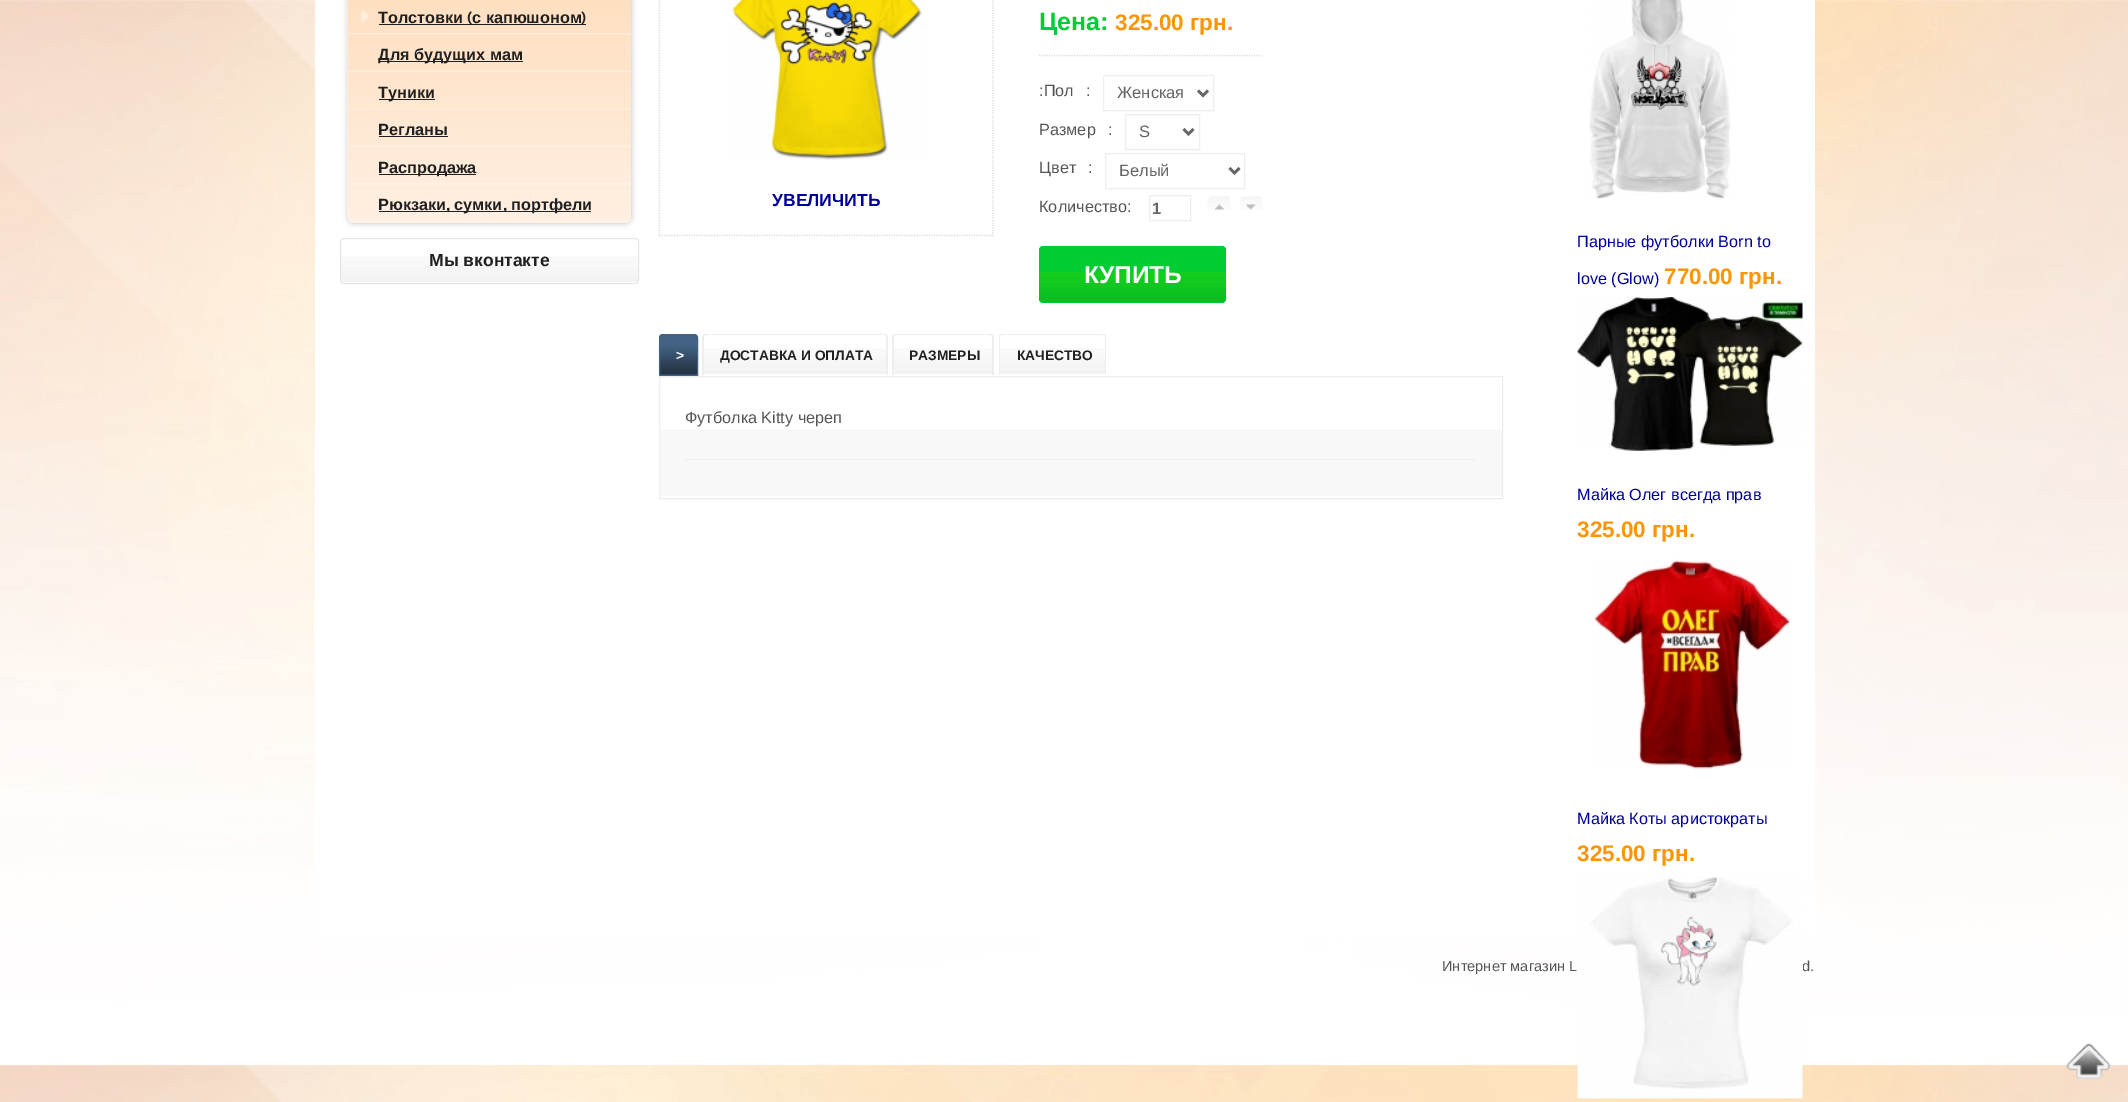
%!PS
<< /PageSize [2128 1102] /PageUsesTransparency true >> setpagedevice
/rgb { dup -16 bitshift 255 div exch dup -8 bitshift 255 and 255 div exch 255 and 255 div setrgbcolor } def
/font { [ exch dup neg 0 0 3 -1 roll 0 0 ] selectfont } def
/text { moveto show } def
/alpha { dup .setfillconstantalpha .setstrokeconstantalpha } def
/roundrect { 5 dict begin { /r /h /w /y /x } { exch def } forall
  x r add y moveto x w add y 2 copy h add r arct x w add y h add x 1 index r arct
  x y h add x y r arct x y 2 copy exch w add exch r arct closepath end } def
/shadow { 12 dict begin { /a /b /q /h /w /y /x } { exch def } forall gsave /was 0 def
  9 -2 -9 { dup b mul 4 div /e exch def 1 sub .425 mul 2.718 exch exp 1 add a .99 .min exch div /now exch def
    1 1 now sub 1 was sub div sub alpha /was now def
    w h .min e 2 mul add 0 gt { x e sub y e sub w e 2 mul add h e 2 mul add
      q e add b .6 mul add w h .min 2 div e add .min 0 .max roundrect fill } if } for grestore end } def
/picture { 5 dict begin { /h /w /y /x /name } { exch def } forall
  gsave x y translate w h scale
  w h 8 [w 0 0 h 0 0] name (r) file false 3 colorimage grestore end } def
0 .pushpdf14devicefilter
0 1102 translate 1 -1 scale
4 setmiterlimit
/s1 { /LiberationSans-Bold 16.25 font 16#202020 rgb } def
/s2 { /Mako-Bold 16.25 font 16#202020 rgb } def
/s3 { /LiberationSans-Bold 17.5 font 16#202020 rgb } def
/s4 { /LiberationSans-Bold 17.5 font 16#000099 rgb } def
/s5 { /LiberationSans-Bold 25 font 16#00CC33 rgb } def
/s6 { /LiberationSans-Bold 22.5 font 16#FC9503 rgb } def
/s7 { /LiberationSans-Regular 16.25 font 16#555555 rgb } def
/s8 { /LiberationSans-Regular 16.5 font 16#666666 rgb } def
/s9 { /LiberationSans-Bold 16.5 font 16#666666 rgb } def
/s10 { /LiberationSans-Bold 24.5 font 16#FFFFFF rgb } def
/s11 { /LiberationSans-Bold 13.75 font 16#FFFFFF rgb } def
/s12 { /LiberationSans-Bold 13.75 font 16#202020 rgb } def
/s13 { /LiberationSans-Regular 16.25 font 16#000099 rgb } def
/s14 { /LiberationSans-Regular 14.6 font 16#555555 rgb } def
16#FFFFFF rgb
0 0 2128 1102 rectfill
(pic1.raw) 0 0 2128 1102 picture
315 -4 1500 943 4 roundrect fill
16#BBBBBB rgb
348 -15 283 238 6 3 1 shadow
16#FFF0E2 rgb
348 -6 283 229 6 roundrect fill
(pic2.raw) 347 0 284 219 picture
(pic3.raw) 348 33 283 2 picture
(pic4.raw) 361 9 9 14 picture
s1
(Толстовки) 378 23 text
379 24 207 1 rectfill
s2
(\() 467 23 text
s1
(с капюшоном) 472 23 text
s2
(\)) 581 23 text
(pic5.raw) 348 70 283 2 picture
379 61 144 1 rectfill
s1
(Для будущих мам) 378 60 text
(pic6.raw) 348 108 283 2 picture
379 99 56 1 rectfill
(Туники) 378 98 text
16#FFF1E4 rgb
348 146 283 1 rectfill
s1
(Регланы) 378 135 text
379 136 69 1 rectfill
(pic7.raw) 348 183 283 2 picture
379 174 97 1 rectfill
(Распродажа) 378 173 text
(pic8.raw) 351 221 276 1 picture
(Рюкзаки) 378 210 text
379 211 212 1 rectfill
s2
(,) 446 210 text
s1
(сумки) 454 210 text
s2
(,) 503 210 text
s1
(портфели) 511 210 text
(pic9.raw) 340 256 299 26 picture
16#E7E7E7 rgb
340.5 238.5 298 45 3.5 roundrect stroke
s3
(Мы вконтакте) 429 266 text
16#DDDDDD rgb
1.2 setlinewidth
[1.25 1.25] 0 setdash
993 -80 moveto 993 236 lineto stroke
659 235.5 moveto 994 235.5 lineto stroke
659.5 -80 moveto 659.5 236 lineto stroke
(pic10.raw) 729 0 194 161 picture
s4
(УВЕЛИЧИТЬ) 772 206 text
16#DDDDDD rgb
1039 55.5 moveto 1262.5 55.5 lineto stroke
s5
(Цена:) 1039 30 text
s6
(325.00 грн.) 1115 30 text
s7
(:Пол) 1039 96 text
(:) 1086 96 text
16#EEEEEE rgb
1 setlinewidth
[] 0 setdash
1103.5 75.5 110 35 rectstroke
16#666666 rgb
2.5 setlinewidth
1198 90.5 moveto 1203 95.5 lineto 1208 90.5 lineto stroke
s8
(Женская) 1117 98 text
s7
(Размер) 1039 135 text
(:) 1108 135 text
16#EEEEEE rgb
1 setlinewidth
1125.5 114.5 74 35 rectstroke
16#666666 rgb
2.5 setlinewidth
1183.5 129 moveto 1188.5 134 lineto 1193.5 129 lineto stroke
s8
(S) 1139 137 text
s7
(Цвет) 1039 173 text
(:) 1088 173 text
16#EEEEEE rgb
1 setlinewidth
1105.5 153.5 139 35 rectstroke
16#666666 rgb
2.5 setlinewidth
1229.5 168 moveto 1234.5 173 lineto 1239.5 168 lineto stroke
s8
(Белый) 1119 176 text
s7
(Количество:) 1039 212 text
16#EEEEEE rgb
1 setlinewidth
1149.5 195.5 41 25 rectstroke
s9
(1) 1152 214 text
(pic11.raw) 1207 196 23 14 picture
(pic12.raw) 1240 196 22 14 picture
16#00CC33 rgb
1039 246 187 57 4 roundrect fill
(pic13.raw) 1039 272 188 30 picture
s10
(КУПИТЬ) 1084 283 text
16#436284 rgb
663 334 moveto 694 334 lineto 696 334 698 336 698 338 curveto 698 376 lineto 659 376 lineto 659 338 lineto 659 336 661 334 663 334 curveto closepath fill
(pic14.raw) 658 344 39 31 picture
663 334.5 moveto 694 334.5 lineto 696 334.5 697.5 336 697.5 338 curveto 697.5 375.5 lineto 659.5 375.5 lineto 659.5 338 lineto 659.5 336 661 334.5 663 334.5 curveto closepath stroke
s11
(>) 676 360 text
(pic15.raw) 704 348 182 26 picture
16#EEEEEE rgb
706 334 moveto 884 334 lineto 886 334 888 335 888 338 curveto 888 375 lineto 702 375 lineto 702 338 lineto 702 335 704 334 706 334 curveto closepath 706 335 moveto 884 335 lineto 885 335 886 336 886 338 curveto 886 375 lineto 704 375 lineto 704 338 lineto 704 336 705 335 706 335 curveto closepath eofill
s12
(ДОСТАВКА И ОПЛАТА) 720 360 text
(pic16.raw) 894 348 98 26 picture
16#EEEEEE rgb
896 334 moveto 990 334 lineto 992 334 994 335 994 338 curveto 994 375 lineto 892 375 lineto 892 338 lineto 892 335 894 334 896 334 curveto closepath 896 335 moveto 990 335 lineto 991 335 992 336 992 338 curveto 992 375 lineto 894 375 lineto 894 338 lineto 894 336 895 335 896 335 curveto closepath eofill
s12
(РАЗМЕРЫ) 909 360 text
(pic17.raw) 1000 348 105 26 picture
16#EEEEEE rgb
1002 334 moveto 1102 334 lineto 1105 334 1106 335 1106 338 curveto 1106 375 lineto 999 375 lineto 999 338 lineto 999 335 1000 334 1002 334 curveto closepath 1002 335 moveto 1102 335 lineto 1104 335 1105 336 1105 338 curveto 1105 375 lineto 1000 375 lineto 1000 338 lineto 1000 336 1001 335 1002 335 curveto closepath eofill
s12
(КАЧЕСТВО) 1017 360 text
(pic18.raw) 1589 0 142 199 picture
s13
(Парные футболки Born to) 1577 247 text
(love \(Glow\)) 1577 284 text
s6
(770.00 грн.) 1664 284 text
(pic19.raw) 1577 297 226 154 picture
s13
(Майка Олег всегда прав) 1577 500 text
s6
(325.00 грн.) 1577 537 text
(pic20.raw) 1593 559 198 210 picture
s13
(Майка Коты аристократы) 1577 824 text
s6
(325.00 грн.) 1577 861 text
s14
(d.) 1802 971 text
(pic21.raw) 1577 877 226 222 picture
16#F9F8F8 rgb
660 429 842 67 rectfill
16#EEEEEE rgb
659.5 376.5 843 122 rectstroke
s7
(Футболка Kitty череп) 685 423 text
16#EEEEEE rgb
685 459 791 1 rectfill
s14
(Интернет магазин L) 1442 971 text
(pic22.raw) 2066 1043 44 36 picture
.poppdf14devicefilter showpage
